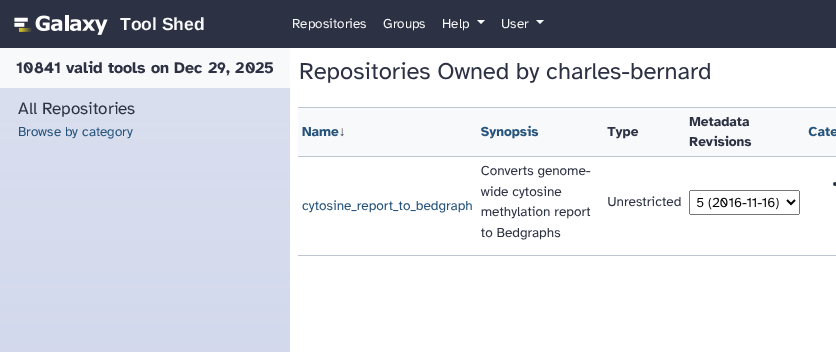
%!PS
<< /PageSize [836 352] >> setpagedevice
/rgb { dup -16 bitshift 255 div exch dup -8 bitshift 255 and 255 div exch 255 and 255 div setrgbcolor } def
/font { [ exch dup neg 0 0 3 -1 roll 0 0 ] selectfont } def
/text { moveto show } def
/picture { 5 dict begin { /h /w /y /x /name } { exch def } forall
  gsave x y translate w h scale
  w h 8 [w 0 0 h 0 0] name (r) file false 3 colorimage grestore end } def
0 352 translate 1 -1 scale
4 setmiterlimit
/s1 { /LiberationSans-Bold 17.5 font 16#F8F9FA rgb } def
/s2 { /AtkinsonHyperlegible-Regular 13.5 font 16#F8F9FA rgb } def
/s3 { /AtkinsonHyperlegible-Bold 16 font 16#2C3143 rgb } def
/s4 { /AtkinsonHyperlegible-Regular 17 font 16#2C3143 rgb } def
/s5 { /AtkinsonHyperlegible-Regular 13.5 font 16#25537B rgb } def
16#FFFFFF rgb
0 0 836 352 rectfill
16#2C3143 rgb
0 0 836 48 rectfill
(pic1.raw) 14 15 94 20 picture
s1
(Tool Shed) 120 30 text
s2
(Repositories) 292 28 text
(Groups) 383 28 text
(Help) 442 28 text
477 20 moveto 485 20 lineto 481 24 lineto closepath fill
(User) 501 28 text
536 20 moveto 544 20 lineto 540 24 lineto closepath fill
(pic2.raw) 0 88 290 264 picture
0 48 290 40 rectfill
s3
(10841 valid tools on Dec 29, 2025) 16 73 text
s4
(All Repositories) 18 114 text
s5
(Browse by category) 18 136 text
(pic3.raw) 298 62 538 194 picture
showpage
